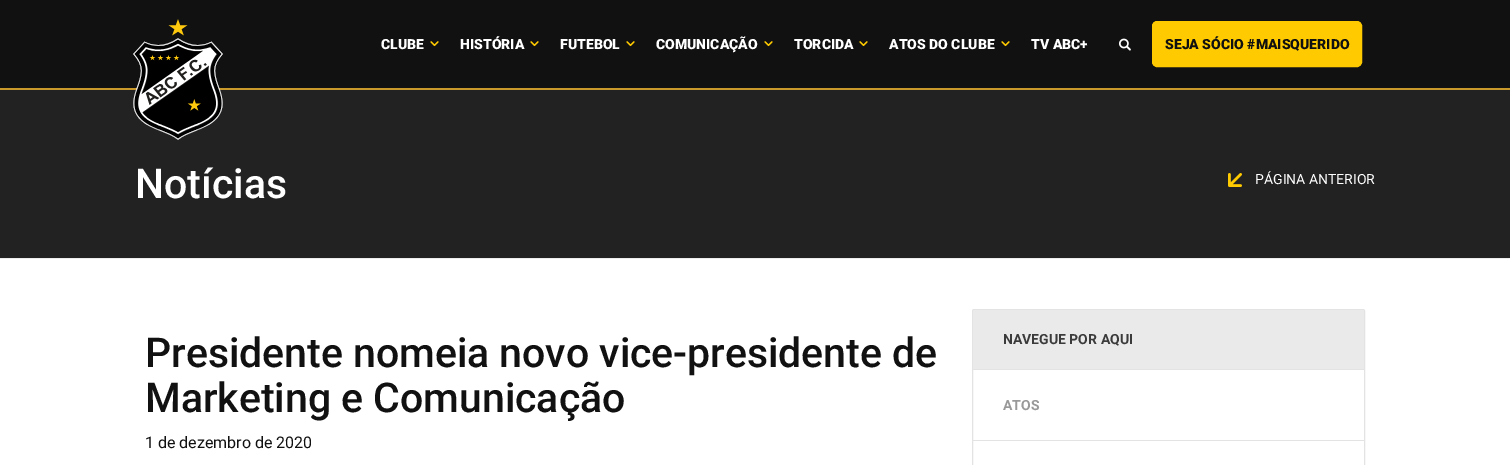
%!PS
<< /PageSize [1510 465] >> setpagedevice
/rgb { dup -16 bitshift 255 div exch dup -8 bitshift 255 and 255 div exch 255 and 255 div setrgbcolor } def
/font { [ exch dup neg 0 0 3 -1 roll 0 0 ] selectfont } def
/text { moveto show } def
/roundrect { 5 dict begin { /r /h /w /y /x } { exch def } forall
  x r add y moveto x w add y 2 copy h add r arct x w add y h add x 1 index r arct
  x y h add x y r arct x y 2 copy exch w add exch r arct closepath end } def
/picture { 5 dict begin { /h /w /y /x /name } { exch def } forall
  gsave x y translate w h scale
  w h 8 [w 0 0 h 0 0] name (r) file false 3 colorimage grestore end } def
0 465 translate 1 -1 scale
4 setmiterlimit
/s1 { /Roboto-Black 14 font 16#FFFFFF rgb } def
/s2 { /Roboto-Black 14 font 16#111111 rgb } def
/s3 { /Roboto-Medium 41 font 16#FFFFFF rgb } def
/s4 { /Roboto-Regular 14 font 16#FFFFFF rgb } def
/s5 { /Roboto-Medium 41 font 16#111111 rgb } def
/s6 { /Roboto-Regular 16 font 16#111111 rgb } def
/s7 { /Roboto-Bold 14 font 16#3B3B3B rgb } def
/s8 { /Roboto-Bold 14 font 16#999999 rgb } def
16#FFFFFF rgb
0 0 1510 465 rectfill
16#111111 rgb
0 0 1510 88 rectfill
16#CA992C rgb
0 88 1510 2 rectfill
16#222222 rgb
0 90 1510 168 rectfill
(pic1.raw) 133 19 90 121 picture
s1
(CLUBE) 381 49 text
(pic2.raw) 430 41 9 6 picture
(HISTÓRIA) 460 49 text
(pic2.raw) 530 41 9 6 picture
(FUTEBOL) 560 49 text
(pic2.raw) 626 41 9 6 picture
(COMUNICAÇÃO) 656 49 text
(pic2.raw) 764 41 9 6 picture
(TORCIDA) 794 49 text
(pic2.raw) 859 41 9 6 picture
(ATOS DO CLUBE) 889 49 text
(pic2.raw) 1001 41 9 6 picture
(TV ABC+) 1031 49 text
(pic3.raw) 1119 38 12 13 picture
16#FFCA00 rgb
1152.5 21.5 209 45 4.5 roundrect gsave fill grestore
stroke
s2
(SEJA SÓCIO #MAISQUERIDO) 1165 49 text
16#EEEEEE rgb
0 258 1510 1 rectfill
s3
(Notícias) 135 198 text
(pic4.raw) 1228 173 14 14 picture
s4
(PÁGINA ANTERIOR) 1255 184 text
s5
(Presidente nomeia novo vice-presidente de) 145 367 text
(Marketing e Comunicação) 145 412 text
s6
(1 de dezembro de 2020) 145 448 text
16#E3E3E3 rgb
972.5 309.5 392 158 1.5 roundrect stroke
16#EAEAEA rgb
973 310 391 59 rectfill
s7
(NAVEGUE POR AQUI) 1003 344 text
16#E3E3E3 rgb
973 369 391 1 rectfill
s8
(ATOS) 1003 410 text
16#E3E3E3 rgb
973 440 391 1 rectfill
showpage
